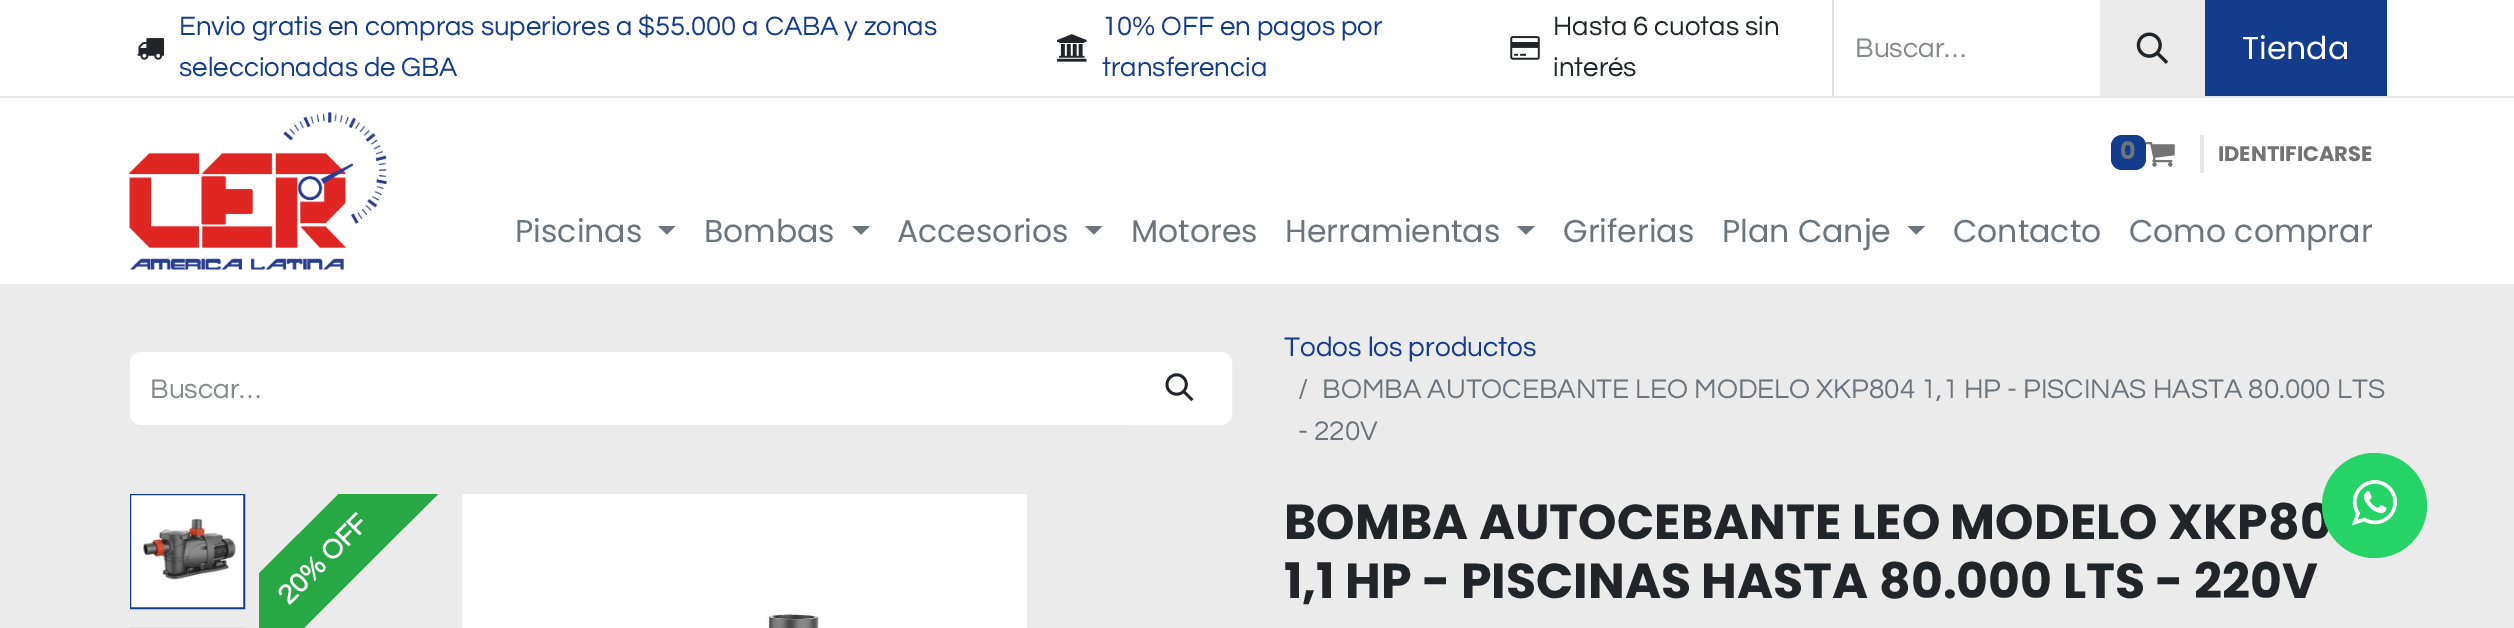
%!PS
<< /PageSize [2514 628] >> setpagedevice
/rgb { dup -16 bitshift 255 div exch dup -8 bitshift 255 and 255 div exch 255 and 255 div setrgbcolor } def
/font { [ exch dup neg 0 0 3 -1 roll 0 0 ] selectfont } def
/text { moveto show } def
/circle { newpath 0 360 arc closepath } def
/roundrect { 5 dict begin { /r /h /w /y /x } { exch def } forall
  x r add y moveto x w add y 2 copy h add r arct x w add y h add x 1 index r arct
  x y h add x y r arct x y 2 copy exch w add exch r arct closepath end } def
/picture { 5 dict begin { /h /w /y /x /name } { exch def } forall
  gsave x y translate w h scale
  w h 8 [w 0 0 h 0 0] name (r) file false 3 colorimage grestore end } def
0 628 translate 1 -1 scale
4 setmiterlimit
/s1 { /Questrial-Regular 27.55 font 16#143C8C rgb } def
/s2 { /Questrial-Regular 27.55 font 16#212529 rgb } def
/s3 { /Questrial-Regular 28 font 16#86888A rgb } def
/s4 { /Poppins-Regular 31.5 font 16#FFFFFF rgb } def
/s5 { /Poppins-Bold 24 font 16#6C757D rgb } def
/s6 { /Poppins-Bold 21 font 16#737373 rgb } def
/s7 { /Poppins-Regular 31.5 font 16#6C757D rgb } def
/s8 { /Questrial-Regular 28 font 16#143C8C rgb } def
/s9 { /Questrial-Regular 28 font 16#6C757D rgb } def
/s10 { /Poppins-Bold 49 font 16#212529 rgb } def
16#EBEBEB rgb
0 0 2514 628 rectfill
16#FFFFFF rgb
0 0 2514 284 rectfill
16#E6E6E6 rgb
0 96 2514 2 rectfill
(pic1.raw) 137 38 28 22 picture
s1
(Envio gratis en compras superiores a $55.000 a CABA y zonas) 179 35 text
(seleccionadas de GBA) 179 76 text
(pic2.raw) 1057 34 30 28 picture
(10% OFF en pagos por) 1102 35 text
(transferencia) 1102 76 text
s2
(Hasta 6 cuotas sin) 1553 35 text
(pic3.raw) 1510 36 30 24 picture
(interés) 1553 76 text
16#DEDEDF rgb
1832 0 2 96 rectfill
s3
(Buscar…) 1855 57 text
16#EBEBEB rgb
2100 0 105 96 rectfill
(pic4.raw) 2136 32 33 32 picture
16#143C8C rgb
2205 0 182 96 rectfill
s4
(Tienda) 2242 59 text
(pic5.raw) 129 112 258 158 picture
(pic6.raw) 2145 142 30 25 picture
16#143C8C rgb
2111 135 35 35 11 roundrect fill
s5
(0) 2120 159 text
16#E6E6E6 rgb
2200 135 4 38 rectfill
s6
(IDENTIFICARSE) 2218 161 text
s7
(Piscinas) 515 242 text
658 226 moveto 675.5 226 lineto 667 234.5 lineto closepath fill
(Bombas) 704 242 text
852 226 moveto 870 226 lineto 861 234.5 lineto closepath fill
(Accesorios) 897 242 text
1085 226 moveto 1102.5 226 lineto 1094 234.5 lineto closepath fill
(Motores) 1131 242 text
(Herramientas) 1285 242 text
1517 226 moveto 1535 226 lineto 1526 234.5 lineto closepath fill
(Griferias) 1563 242 text
(Plan Canje) 1722 242 text
1907.5 226 moveto 1925 226 lineto 1916 234.5 lineto closepath fill
(Contacto) 1953 242 text
(Como comprar) 2129 242 text
16#FFFFFF rgb
141 352 moveto 1131 352 lineto 1131 425 lineto 141 425 lineto 135 425 130 420 130 414 curveto 130 363 lineto 130 357 135 352 141 352 curveto closepath fill
s3
(Buscar…) 150 398 text
16#FFFFFF rgb
1130 353 moveto 1221 353 lineto 1226.5 353 1231 357.5 1231 363 curveto 1231 414 lineto 1231 419.5 1226.5 424 1221 424 curveto 1130 424 lineto closepath gsave fill grestore
2 setlinewidth
stroke
(pic7.raw) 1165 373 29 29 picture
s8
(Todos los productos) 1284 356 text
s9
(/) 1298 398 text
(BOMBA AUTOCEBANTE LEO MODELO XKP804 1,1 HP - PISCINAS HASTA 80.000 LTS) 1322 398 text
(- 220V) 1298 440 text
16#143C8C rgb
131 495 113 113 rectstroke
(pic8.raw) 131 495 113 113 picture
16#DDE0E3 rgb
131 628 113 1 rectstroke
gsave
259 494 973 134 rectclip
16#28A745 rgb
134 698 moveto 463 370 lineto 512 420 lineto 184 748 lineto closepath fill
grestore
/Questrial-Bold 28 font
16#FFFFFF rgb
gsave 289 606 translate -45 rotate 0 0 moveto (20% OFF) show grestore
(pic9.raw) 462 494 565 134 picture
s10
(BOMBA AUTOCEBANTE LEO MODELO XKP80) 1284 539 text
(1,1 HP - PISCINAS HASTA 80.000 LTS - 220V) 1284 598 text
16#25D366 rgb
2374.5 505.5 52.5 circle fill
(pic10.raw) 2352 480 45 46 picture
showpage
